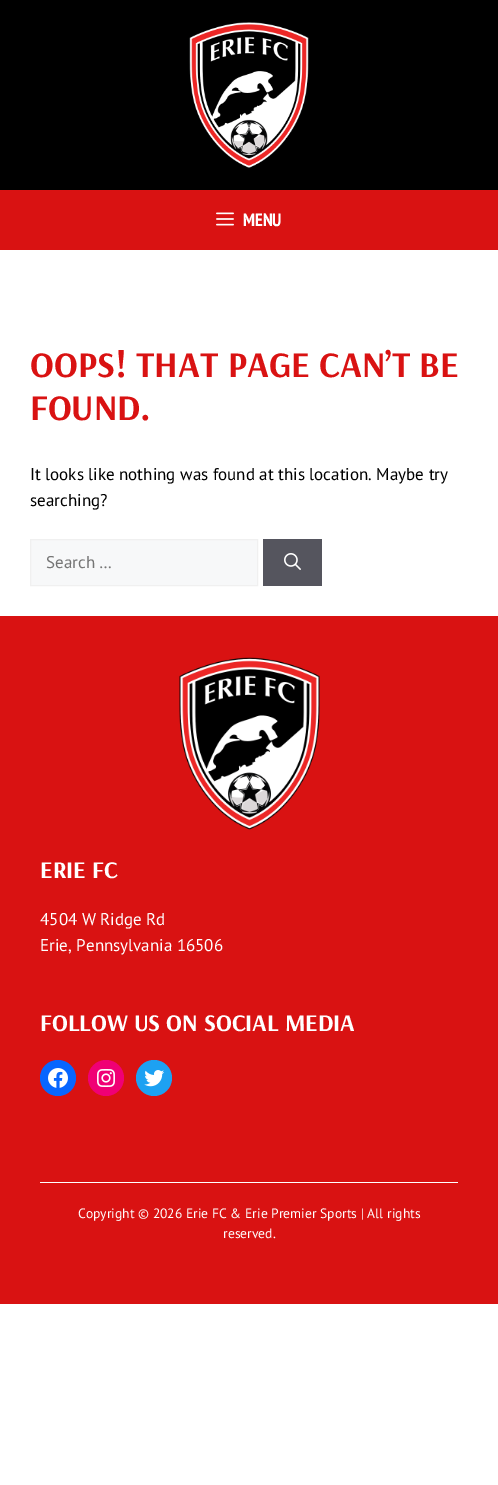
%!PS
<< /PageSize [498 1485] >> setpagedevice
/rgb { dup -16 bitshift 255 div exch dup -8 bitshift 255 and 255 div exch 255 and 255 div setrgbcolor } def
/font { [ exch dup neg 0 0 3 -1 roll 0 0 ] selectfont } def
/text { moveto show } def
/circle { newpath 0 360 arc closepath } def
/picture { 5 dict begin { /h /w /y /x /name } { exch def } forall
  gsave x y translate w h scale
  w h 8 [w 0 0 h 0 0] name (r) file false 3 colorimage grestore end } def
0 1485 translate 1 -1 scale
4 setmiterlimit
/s1 { /PTSansNarrow-Bold 18 font 16#FFFFFF rgb } def
/s2 { /Arsenal-Bold 36 font 16#D91212 rgb } def
/s3 { /PTSans-Regular 17 font 16#000000 rgb } def
/s4 { /PTSans-Regular 17 font 16#757575 rgb } def
/s5 { /Arsenal-Bold 24 font 16#FFFFFF rgb } def
/s6 { /PTSans-Regular 17 font 16#FFFFFF rgb } def
/s7 { /PTSans-Regular 13.6 font 16#FFFFFF rgb } def
16#FFFFFF rgb
0 0 498 1485 rectfill
16#000000 rgb
0 0 498 190 rectfill
(pic1.raw) 189 22 120 146 picture
16#D91212 rgb
0 190 498 60 rectfill
(pic2.raw) 216 212 18 14 picture
s1
(MENU) 243 226 text
s2
(OOPS! THAT PAGE CAN’T BE) 30 377 text
(FOUND.) 30 420 text
s3
(It looks like nothing was found at this location. Maybe try) 30 480 text
(searching?) 30 506 text
16#F7F8F9 rgb
30.5 539.5 moveto 257.5 539.5 lineto 257.5 585.5 lineto 30.5 585.5 lineto closepath gsave fill grestore
16#F0F0F0 rgb
stroke
s4
(Search …) 46 568 text
16#55555E rgb
263 539 59 47 rectfill
(pic3.raw) 284 553 17 17 picture
16#D91212 rgb
0 616 498 688 rectfill
(pic4.raw) 179 657 141 173 picture
s5
(ERIE FC) 40 878 text
s6
(4504 W Ridge Rd) 40 925 text
(Erie, Pennsylvania 16506) 40 951 text
s5
(FOLLOW US ON SOCIAL MEDIA) 40 1031 text
16#0866FF rgb
58 1078 18 circle fill
(pic5.raw) 48 1068 20 20 picture
16#F00075 rgb
106 1078 18 circle fill
(pic6.raw) 97 1069 18 18 picture
16#1DA1F2 rgb
154 1078 18 circle fill
(pic7.raw) 144 1070 20 17 picture
16#FFFFFF rgb
40 1182 418 1 rectfill
s7
(Copyright © 2026 Erie FC & Erie Premier Sports | All rights) 78 1218 text
(reserved.) 223 1238 text
showpage
